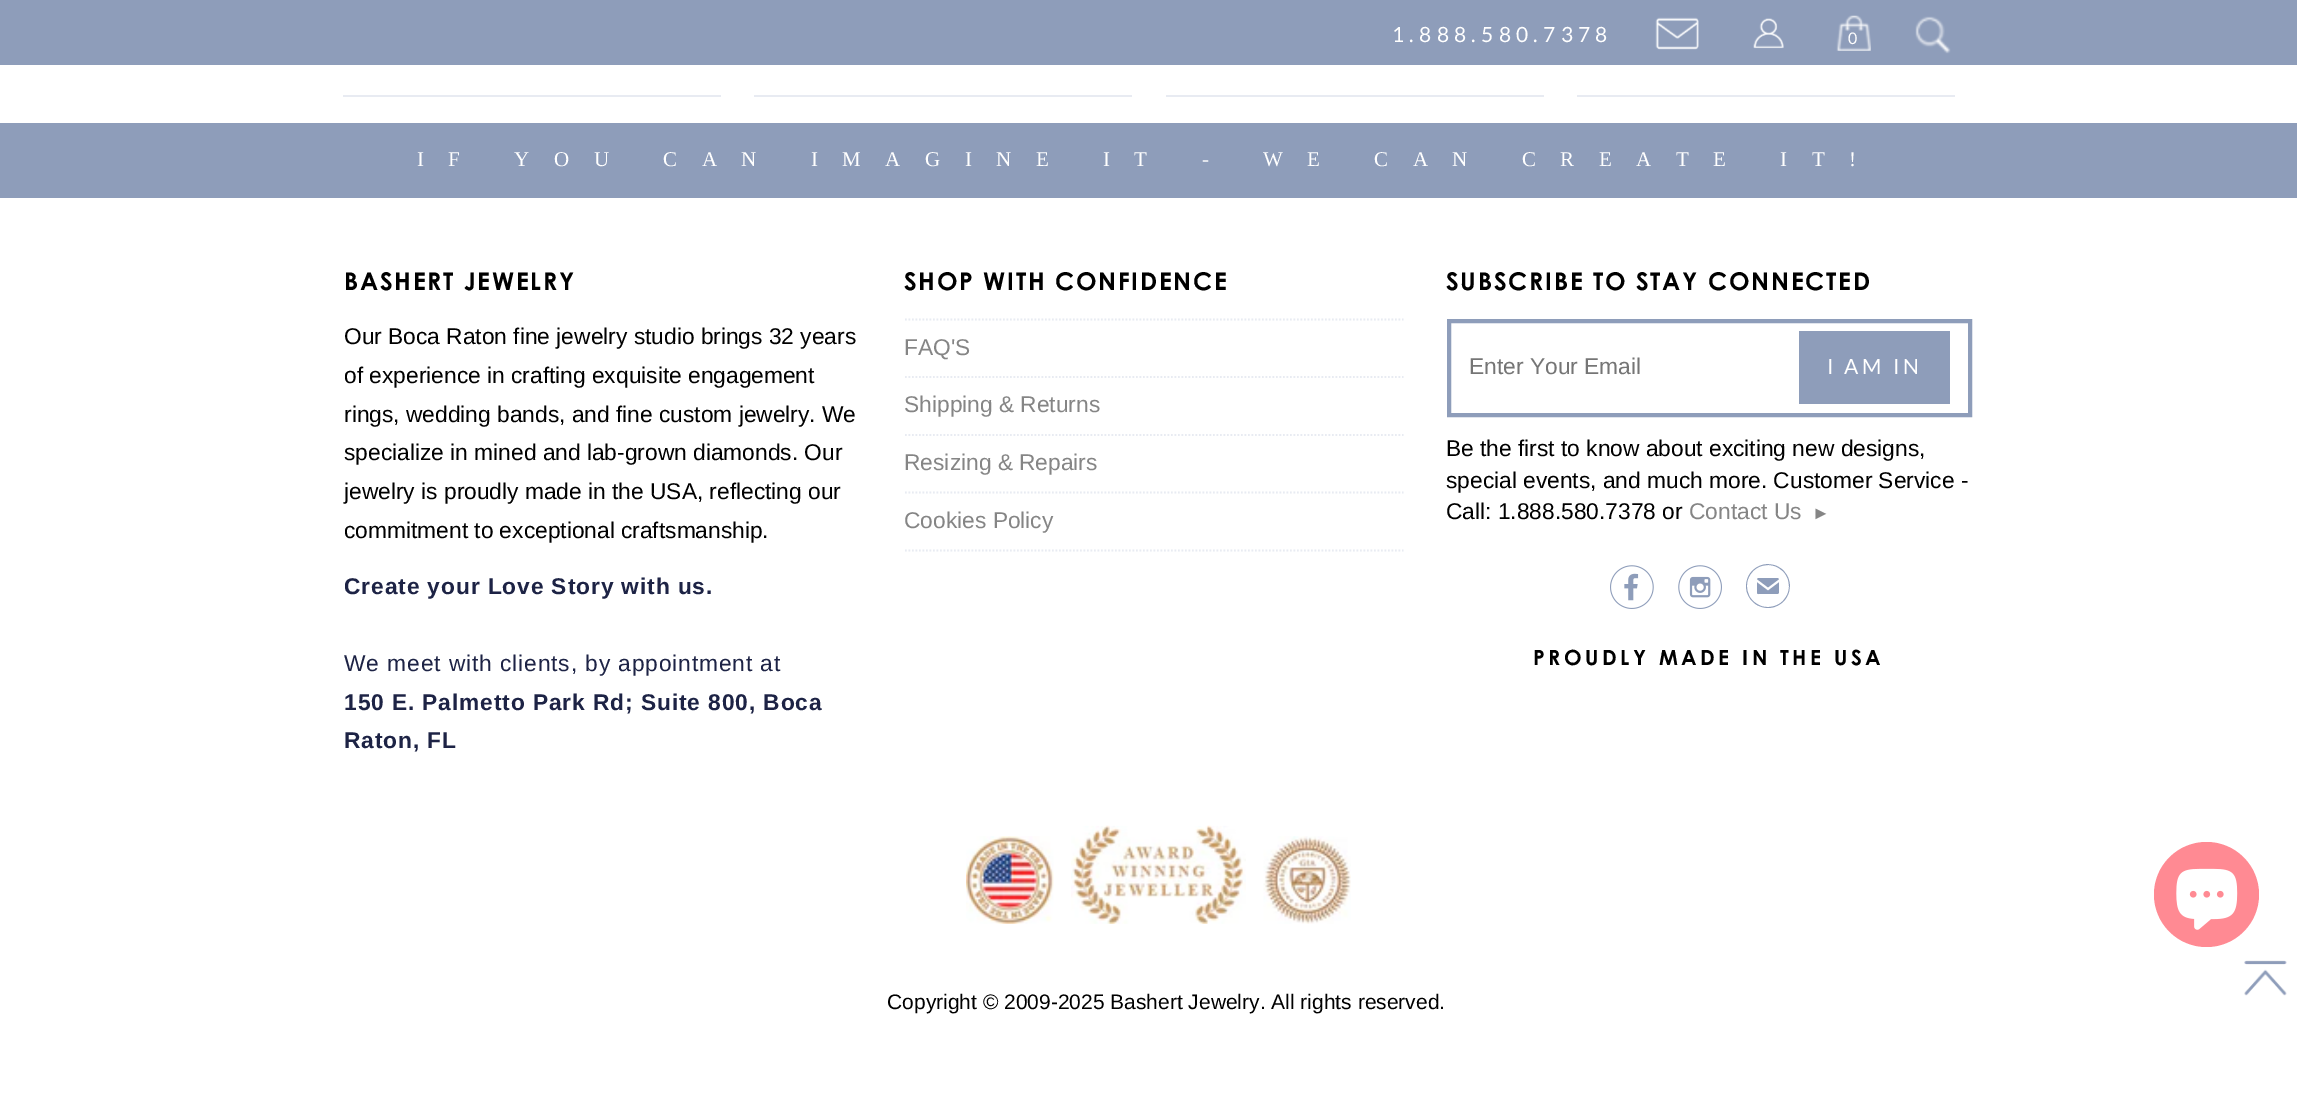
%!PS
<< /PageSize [2297 1095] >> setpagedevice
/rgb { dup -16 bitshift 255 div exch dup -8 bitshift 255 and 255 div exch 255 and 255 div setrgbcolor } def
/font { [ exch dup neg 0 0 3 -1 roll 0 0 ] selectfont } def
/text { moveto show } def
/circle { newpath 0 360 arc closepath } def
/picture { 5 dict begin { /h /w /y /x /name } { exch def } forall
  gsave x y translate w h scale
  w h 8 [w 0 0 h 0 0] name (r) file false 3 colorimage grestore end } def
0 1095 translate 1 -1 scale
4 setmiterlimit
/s1 { /LiberationSans-Regular 22.75 font 16#000000 rgb } def
/s2 { /LiberationSans-Regular 22.75 font 16#858585 rgb } def
/s3 { /LiberationSans-Regular 22.75 font 16#757575 rgb } def
/s4 { /LiberationSans-Regular 18 font 16#858585 rgb } def
/s5 { /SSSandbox-Regular 44 font 16#8E9DBA rgb } def
/s6 { /LiberationSans-Regular 21 font 16#000000 rgb } def
16#FFFFFF rgb
0 0 2297 1095 rectfill
16#8E9DBA rgb
0 0 2297 65 rectfill
/Lato-Regular 21 font
16#FFFFFF rgb
1392 42 moveto 5.25 0 (1.888.580.7378) ashow
(pic1.raw) 1655 17 44 33 picture
(pic2.raw) 1753 18 31 31 picture
(pic3.raw) 1836 15 35 36 picture
/Lato-Regular 16 font
1848 44 moveto 5.25 0 (0) ashow
(pic4.raw) 1915 16 36 38 picture
16#E8EBF2 rgb
343 95 378 2 rectfill
754 95 378 2 rectfill
1166 95 378 2 rectfill
1577 95 378 2 rectfill
16#8E9DBA rgb
0 123 2297 75 rectfill
/LiberationSerif-Regular 21 font
16#FFFFFF rgb
417 166 moveto 24.5 0 (IF YOU CAN IMAGINE IT - WE CAN CREATE IT!) ashow
/CenturyGothic-Bold 24.5 font
16#000000 rgb
344 290 moveto 1.75 0 (BASHERT JEWELRY) ashow
s1
(Our Boca Raton fine jewelry studio brings 32 years) 344 344 text
(of experience in crafting exquisite engagement) 344 383 text
(rings, wedding bands, and fine custom jewelry. We) 344 422 text
(specialize in mined and lab-grown diamonds. Our) 344 460 text
(jewelry is proudly made in the USA, reflecting our) 344 499 text
(commitment to exceptional craftsmanship.) 344 538 text
/LiberationSans-Bold 22.75 font
16#1D2345 rgb
344 594 moveto 0.9 0 (Create your Love Story with us.) ashow
/LiberationSans-Regular 22.75 font
344 671 moveto 0.9 0 (We meet with clients, by appointment at) ashow
/LiberationSans-Bold 22.75 font
344 710 moveto 0.9 0 (150 E. Palmetto Park Rd; Suite 800, Boca) ashow
344 748 moveto 0.9 0 (Raton, FL) ashow
/CenturyGothic-Bold 24.5 font
16#000000 rgb
904 290 moveto 1.75 0 (SHOP WITH CONFIDENCE) ashow
16#E8EBF2 rgb
1.8 setlinewidth
[1.75 1.75] 0 setdash
905 319.5 moveto 1403.5 319.5 lineto stroke
905 377 moveto 1403.5 377 lineto stroke
s2
(FAQ'S) 904 355 text
16#E8EBF2 rgb
905 435 moveto 1403.5 435 lineto stroke
s2
(Shipping & Returns) 904 412 text
16#E8EBF2 rgb
905 492.5 moveto 1403.5 492.5 lineto stroke
s2
(Resizing & Repairs) 904 470 text
16#E8EBF2 rgb
905 550.5 moveto 1403.5 550.5 lineto stroke
s2
(Cookies Policy) 904 528 text
/CenturyGothic-Bold 24.5 font
16#000000 rgb
1446 290 moveto 1.75 0 (SUBSCRIBE TO STAY CONNECTED) ashow
16#8E9DBA rgb
4 setlinewidth
[] 0 setdash
1449 321 521 94 rectstroke
s3
(Enter Your Email) 1469 374 text
16#8E9DBA rgb
1799 331 151 73 rectfill
/Lato-Regular 21 font
16#FFFFFF rgb
1827 374 moveto 3.5 0 (I AM IN) ashow
s1
(Be the first to know about exciting new designs,) 1446 456 text
(special events, and much more. Customer Service -) 1446 488 text
(Call: 1.888.580.7378 or) 1446 519 text
s2
(Contact Us) 1689 519 text
s4
(►) 1812 519 text
(pic5.raw) 1610 565 44 44 picture
(pic6.raw) 1678 565 44 44 picture
s5
(✉) 1746 608 text
/CenturyGothic-Bold 21 font
16#000000 rgb
1533 665 moveto 3.5 0 (PROUDLY MADE IN THE USA) ashow
(pic7.raw) 966 836 88 88 picture
(pic8.raw) 1071 825 175 99 picture
(pic9.raw) 1263 836 88 88 picture
s6
(Copyright © 2009-2025 Bashert Jewelry. All rights reserved.) 887 1009 text
16#FF8A93 rgb
2206.5 894.5 52.5 circle fill
(pic10.raw) 2176 868 62 62 picture
(pic11.raw) 2244 960 43 36 picture
showpage
